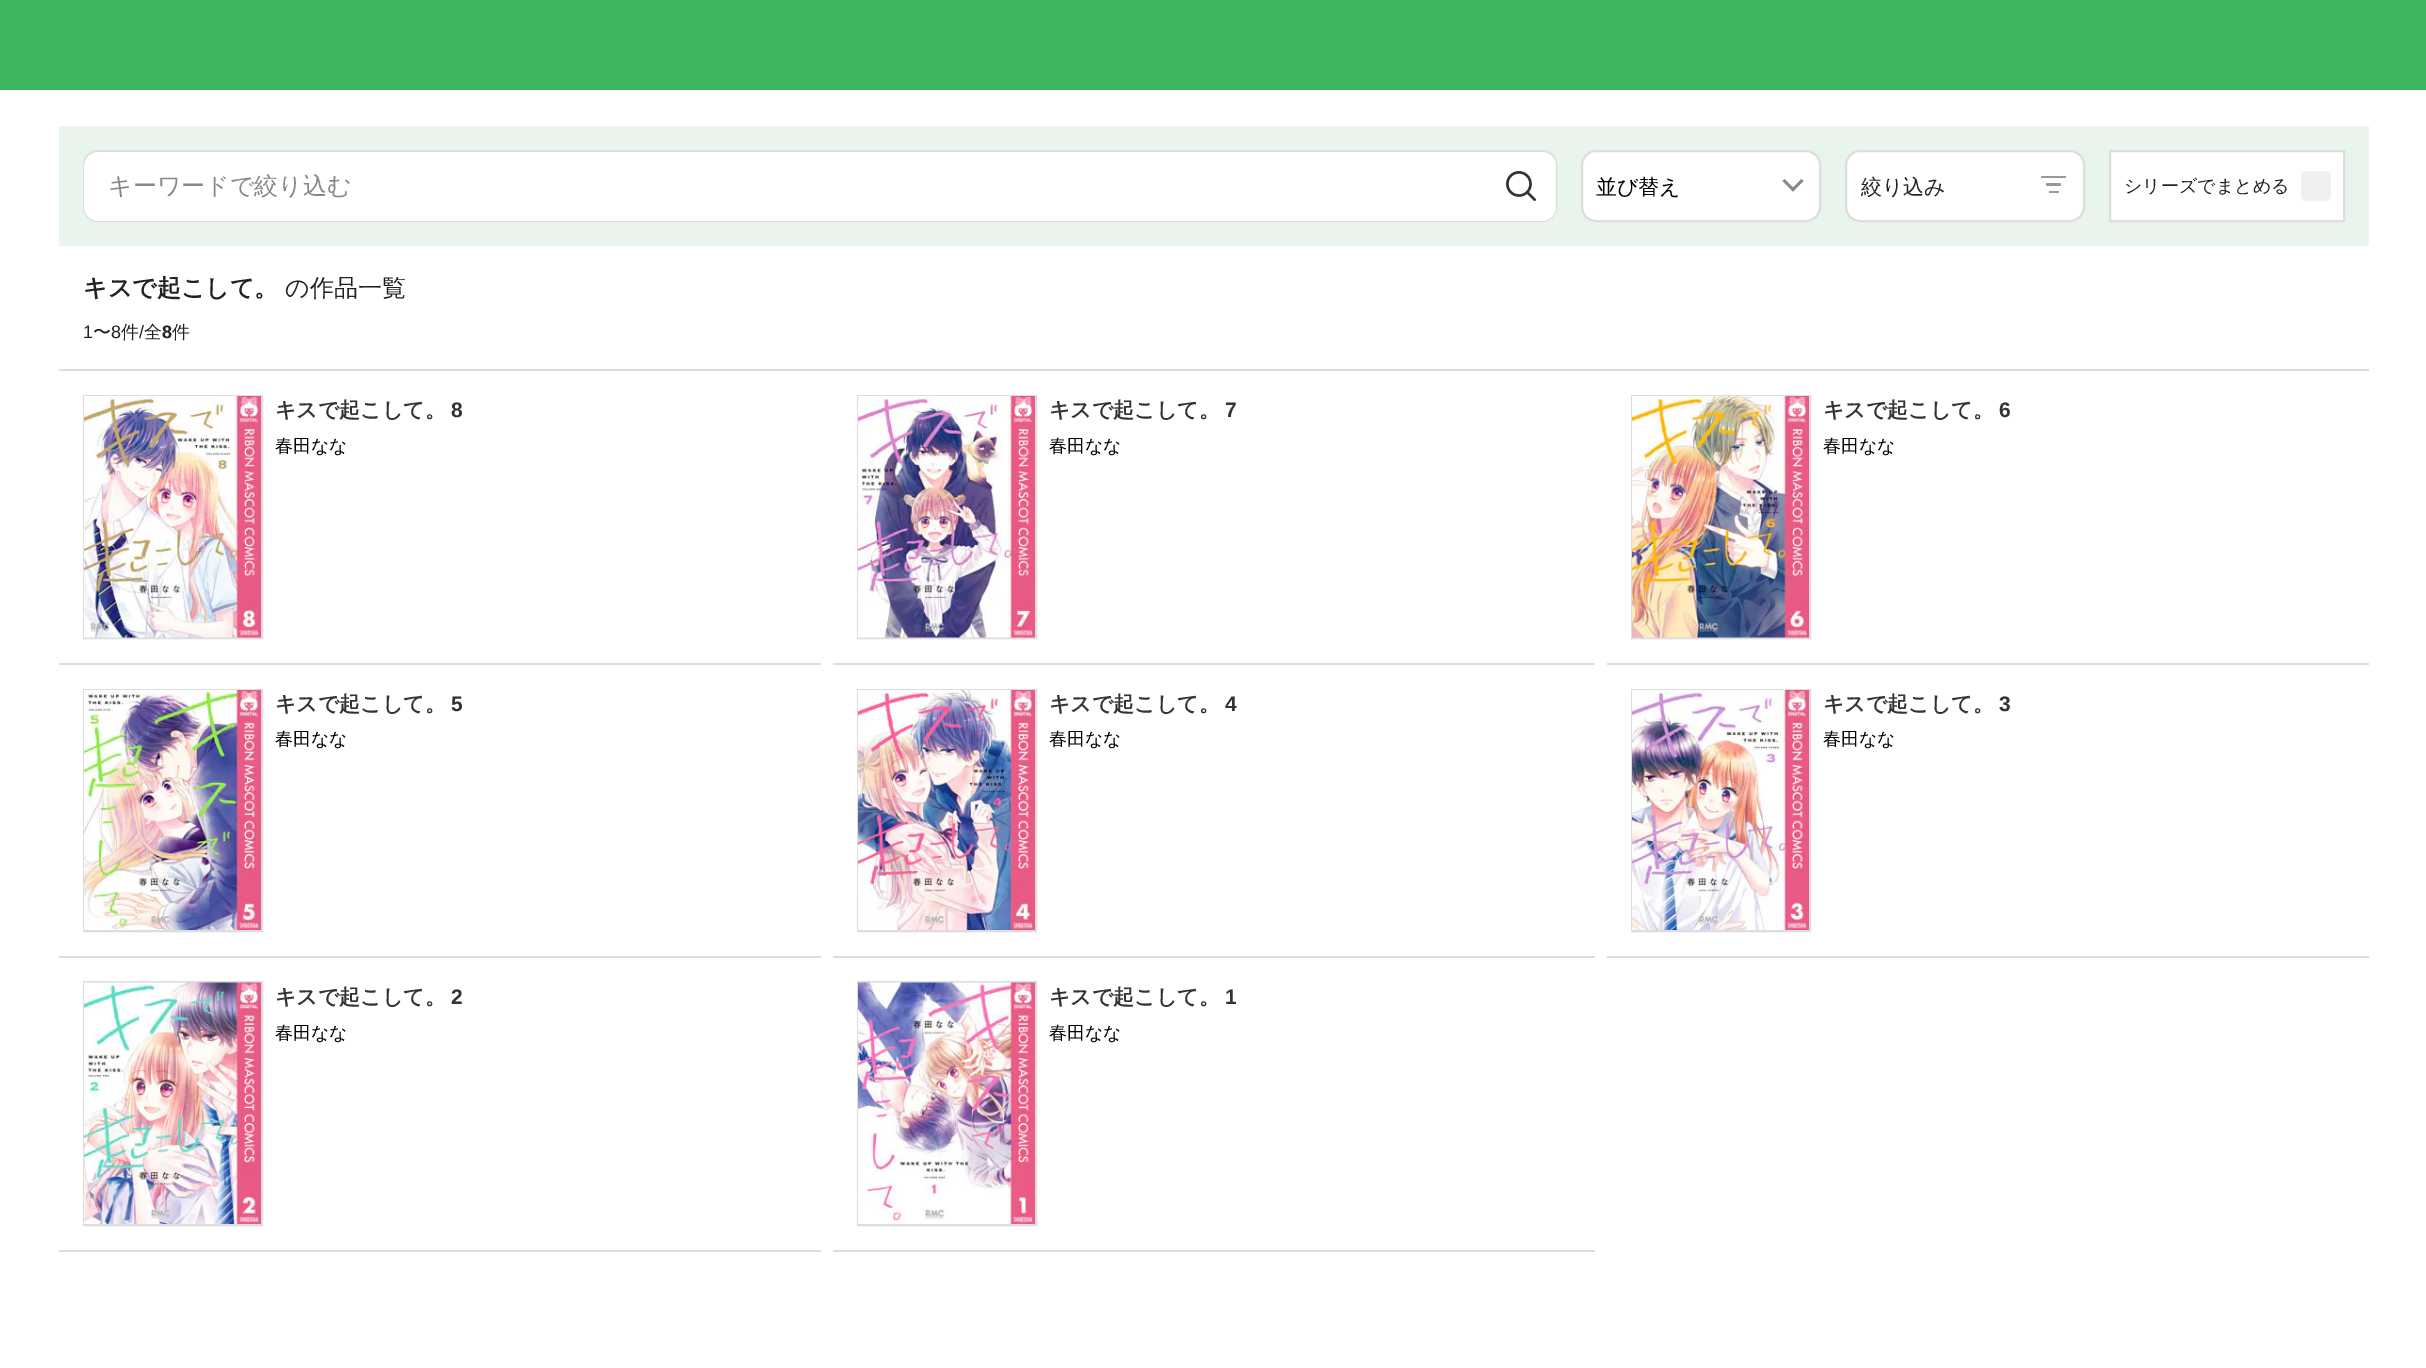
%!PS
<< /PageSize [2426 1368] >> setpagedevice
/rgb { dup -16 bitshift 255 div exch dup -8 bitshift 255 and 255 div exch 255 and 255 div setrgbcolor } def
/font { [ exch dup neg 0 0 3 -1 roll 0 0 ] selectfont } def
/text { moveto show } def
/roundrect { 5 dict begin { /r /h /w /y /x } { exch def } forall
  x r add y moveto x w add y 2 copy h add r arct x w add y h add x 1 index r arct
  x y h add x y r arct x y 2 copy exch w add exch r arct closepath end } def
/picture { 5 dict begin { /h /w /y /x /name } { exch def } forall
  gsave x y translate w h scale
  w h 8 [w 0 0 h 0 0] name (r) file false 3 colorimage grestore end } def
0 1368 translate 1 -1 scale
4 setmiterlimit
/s1 { /WenQuanYiZenHei-Medium 24 font 16#888888 rgb } def
/s2 { /WenQuanYiZenHei-Medium 21 font 16#000000 rgb } def
/s3 { /WenQuanYiZenHei-Medium 21 font 16#222222 rgb } def
/s4 { /WenQuanYiZenHei-Medium 18 font 16#222222 rgb } def
/s5 { /WenQuanYiZenHei-Bold 24 font 16#222222 rgb } def
/s6 { /WenQuanYiZenHei-Medium 24 font 16#222222 rgb } def
/s7 { /LiberationSans-Regular 18 font 16#222222 rgb } def
/s8 { /LiberationSans-Bold 18 font 16#222222 rgb } def
/s9 { /WenQuanYiZenHei-Bold 21 font 16#333333 rgb } def
/s10 { /LiberationSans-Bold 21 font 16#333333 rgb } def
/s11 { /WenQuanYiZenHei-Medium 18 font 16#000000 rgb } def
16#FFFFFF rgb
0 0 2426 1368 rectfill
16#3CB65E rgb
0 0 2426 90 rectfill
16#E8F4EC rgb
59 126 2310 120 rectfill
16#DDDDDD rgb
2 setlinewidth
84 151 1472 70 14 roundrect stroke
gsave
84 152 1472 69 14 roundrect clip newpath
16#FFFFFF rgb
99 152 moveto 1485 152 lineto 1485 221 lineto 99 221 lineto 90.5 221 84 214.5 84 206 curveto 84 167 lineto 84 158.5 90.5 152 99 152 curveto closepath fill
grestore
s1
(キーワードで絞り込む) 108 194 text
16#FFFFFF rgb
1485 152 moveto 1542 152 lineto 1549.5 152 1556 158.5 1556 166 curveto 1556 207 lineto 1556 214.5 1549.5 221 1542 221 curveto 1485 221 lineto closepath fill
(pic1.raw) 1506 171 30 30 picture
1582 151 238 70 14 roundrect gsave fill grestore
16#DDDDDD rgb
stroke
s2
(並び替え) 1596 194 text
16#888888 rgb
1803.5 181 moveto 1793 191.5 lineto 1791 189.5 lineto 1801.5 179 lineto closepath fill
1795 189.5 moveto 1793 191.5 lineto 1782.5 181 lineto 1784.5 179 lineto closepath fill
16#FFFFFF rgb
1846 151 238 70 14 roundrect gsave fill grestore
16#DDDDDD rgb
stroke
s3
(絞り込み) 1861 194 text
16#999999 rgb
2041 176 25 2 1 roundrect fill
2046 183 15 3 1.5 roundrect fill
2049 191 10 2 1 roundrect fill
16#FFFFFF rgb
2110 151 moveto 2344 151 lineto 2344 221 lineto 2110 221 lineto closepath gsave fill grestore
16#DDDDDD rgb
stroke
s4
(シリーズでまとめる) 2124 192 text
16#F0F0F0 rgb
2301 171 30 30 6 roundrect fill
16#DDDDDD rgb
59 369 2310 2 rectfill
s5
(キスで起こして。) 83 296 text
s6
(の作品一覧) 285 296 text
s7
(1) 83 338 text
s4
(〜) 93 338 text
s7
(8) 111 338 text
s4
(件) 121 338 text
s7
(/) 139 338 text
s4
(全) 144 338 text
s8
(8) 162 338 text
s4
(件) 172 338 text
16#DDDDDD rgb
59 663 762 2 rectfill
84 396 178 242 rectstroke
(pic2.raw) 84 396 177 242 picture
s9
(キスで起こして。) 275 417 text
s10
(8) 451 417 text
s11
(春田なな) 275 452 text
16#DDDDDD rgb
833 663 762 2 rectfill
858 396 178 242 rectstroke
(pic3.raw) 858 396 177 242 picture
s9
(キスで起こして。) 1049 417 text
s10
(7) 1225 417 text
s11
(春田なな) 1049 452 text
16#DDDDDD rgb
1607 663 762 2 rectfill
1632 396 178 242 rectstroke
(pic4.raw) 1632 396 177 242 picture
s9
(キスで起こして。) 1823 417 text
s10
(6) 1999 417 text
s11
(春田なな) 1823 452 text
16#DDDDDD rgb
59 956 762 2 rectfill
84 690 178 241 rectstroke
(pic5.raw) 84 690 177 240 picture
s9
(キスで起こして。) 275 711 text
s10
(5) 451 711 text
s11
(春田なな) 275 745 text
16#DDDDDD rgb
833 956 762 2 rectfill
858 690 178 241 rectstroke
(pic6.raw) 858 690 177 240 picture
s9
(キスで起こして。) 1049 711 text
s10
(4) 1225 711 text
s11
(春田なな) 1049 745 text
16#DDDDDD rgb
1607 956 762 2 rectfill
1632 690 178 241 rectstroke
(pic7.raw) 1632 690 177 240 picture
s9
(キスで起こして。) 1823 711 text
s10
(3) 1999 711 text
s11
(春田なな) 1823 745 text
16#DDDDDD rgb
59 1250 762 2 rectfill
84 982 178 243 rectstroke
(pic8.raw) 84 982 177 242 picture
s9
(キスで起こして。) 275 1004 text
s10
(2) 451 1004 text
s11
(春田なな) 275 1039 text
16#DDDDDD rgb
833 1250 762 2 rectfill
858 982 178 243 rectstroke
(pic9.raw) 858 982 177 242 picture
s9
(キスで起こして。) 1049 1004 text
s10
(1) 1225 1004 text
s11
(春田なな) 1049 1039 text
showpage
